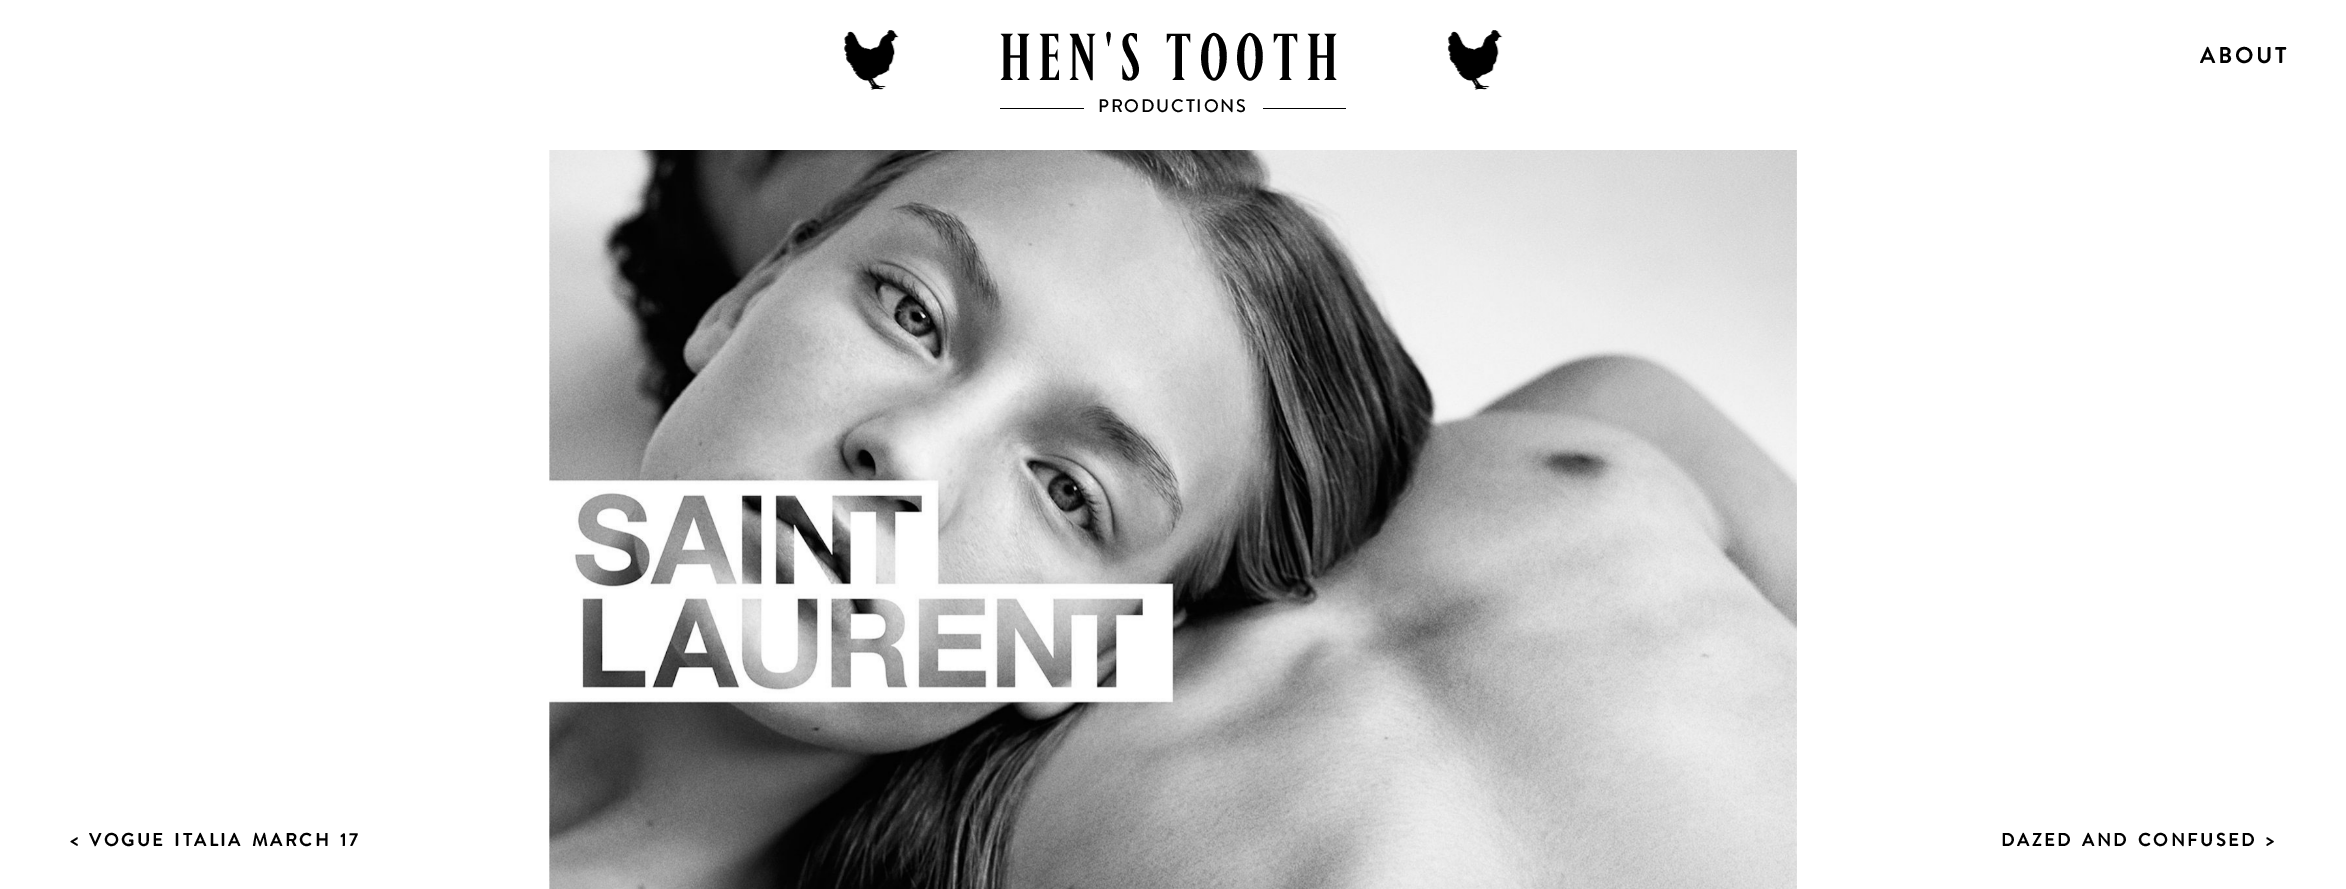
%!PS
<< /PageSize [2346 889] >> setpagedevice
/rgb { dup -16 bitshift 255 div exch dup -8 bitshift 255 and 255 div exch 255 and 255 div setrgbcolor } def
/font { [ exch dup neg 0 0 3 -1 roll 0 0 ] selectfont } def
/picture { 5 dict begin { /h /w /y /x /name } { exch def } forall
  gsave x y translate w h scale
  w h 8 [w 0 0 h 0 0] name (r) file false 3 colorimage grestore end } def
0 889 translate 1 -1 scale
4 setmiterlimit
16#FFFFFF rgb
0 0 2346 889 rectfill
(pic1.raw) 844 30 55 60 picture
/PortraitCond-Medium 70 font
16#000000 rgb
1000 80 moveto 8.75 0 (HEN'S TOOTH) ashow
1000 108 346 1 rectfill
16#FFFFFF rgb
1084 108 179 1 rectfill
/BrandonGrotesque-Medium 18.25 font
16#000000 rgb
1098 112 moveto 1.75 0 (PRODUCTIONS) ashow
(pic2.raw) 1447 30 56 60 picture
/BrandonGrotesque-Bold 22 font
2200 63 moveto 3.25 0 (ABOUT) ashow
(pic3.raw) 549 150 1248 739 picture
/BrandonGrotesque-Bold 18 font
70 846 moveto 2 0 32 2.7 0 (< VOGUE ITALIA MARCH 17) awidthshow
2001 846 moveto 2 0 32 2.7 0 (DAZED AND CONFUSED >) awidthshow
showpage
